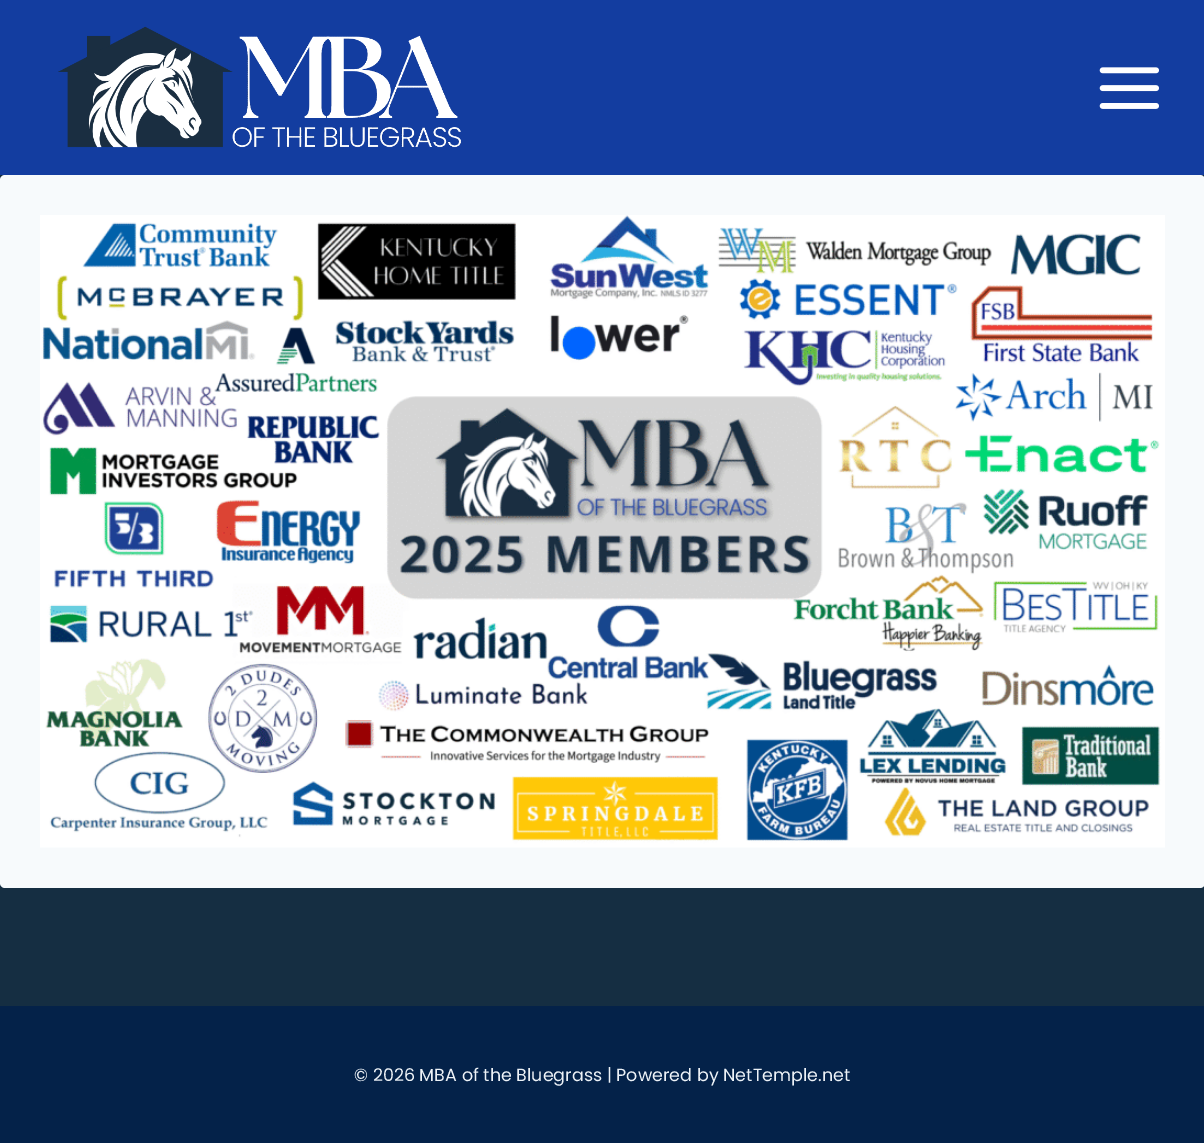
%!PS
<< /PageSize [1204 1143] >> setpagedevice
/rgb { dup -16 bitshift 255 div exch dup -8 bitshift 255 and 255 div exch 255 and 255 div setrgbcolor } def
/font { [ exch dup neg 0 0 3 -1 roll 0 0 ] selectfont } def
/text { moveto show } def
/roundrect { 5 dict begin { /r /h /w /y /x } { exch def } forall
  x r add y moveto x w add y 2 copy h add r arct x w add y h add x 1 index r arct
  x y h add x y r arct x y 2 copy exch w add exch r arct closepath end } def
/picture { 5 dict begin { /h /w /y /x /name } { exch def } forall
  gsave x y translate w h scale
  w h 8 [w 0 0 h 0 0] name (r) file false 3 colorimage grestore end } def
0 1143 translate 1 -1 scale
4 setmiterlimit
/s1 { /Poppins-Regular 17.5 font 16#EDF2F7 rgb } def
16#152E42 rgb
0 0 1204 1143 rectfill
16#133DA0 rgb
0 0 1204 175 rectfill
(pic1.raw) 58 26 403 122 picture
(pic2.raw) 1099 67 60 42 picture
16#F7FAFC rgb
0 175 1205 713 5 roundrect fill
(pic3.raw) 40 215 1125 633 picture
16#042249 rgb
0 1006 1204 137 rectfill
s1
(© 2026 MBA of the Bluegrass | Powered by NetTemple.net) 354 1081 text
showpage
